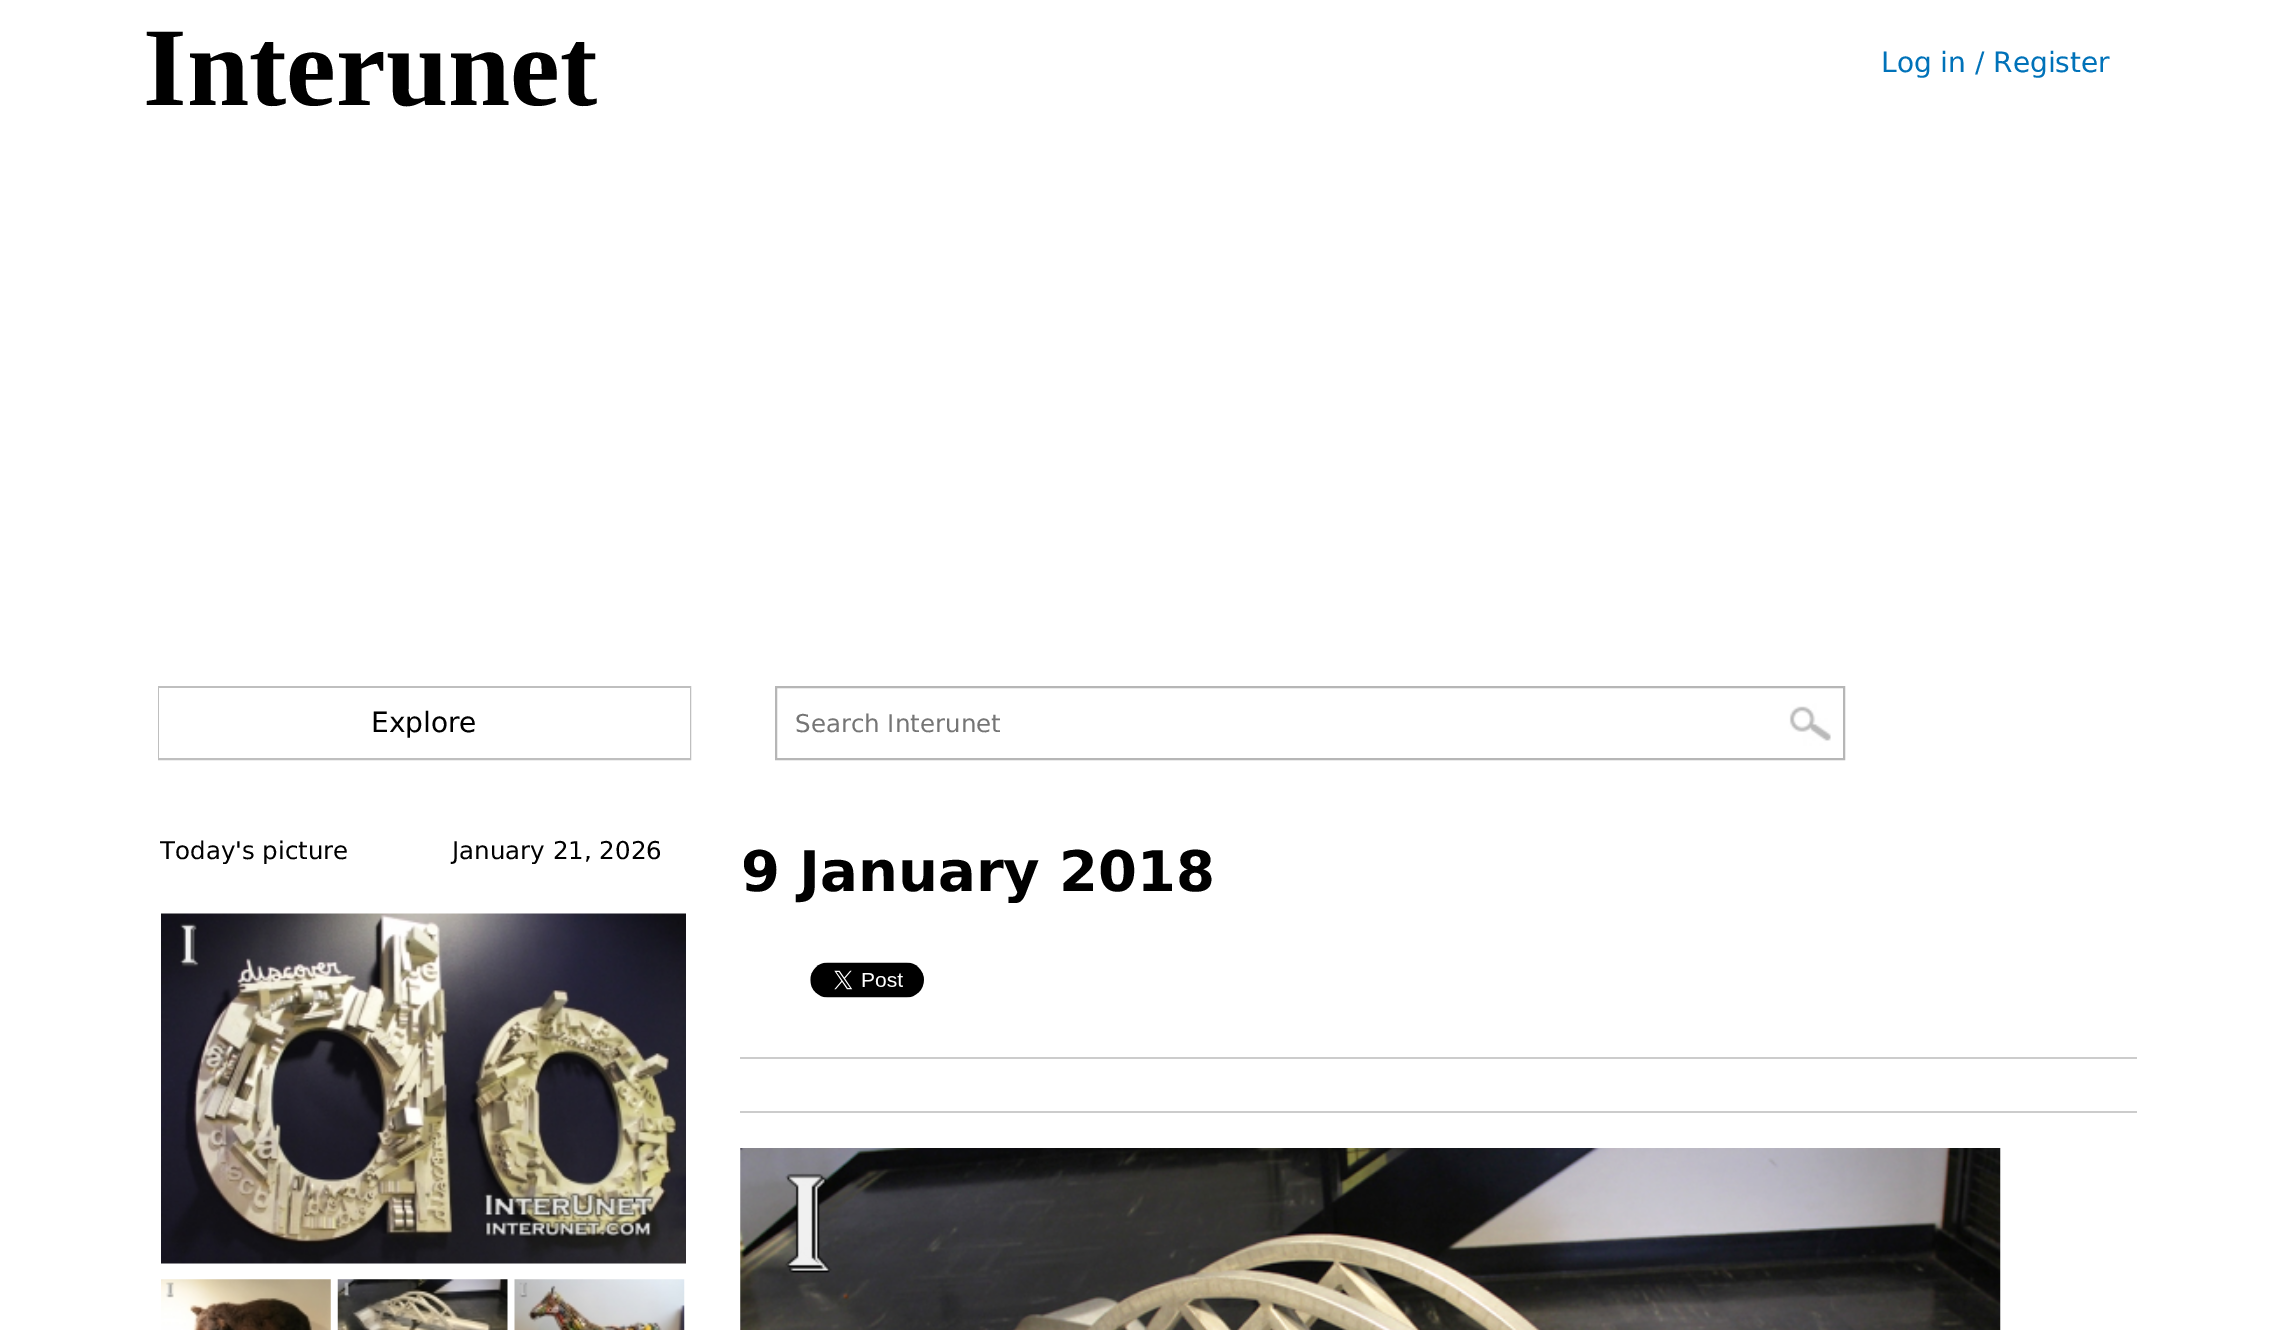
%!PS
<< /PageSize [2282 1330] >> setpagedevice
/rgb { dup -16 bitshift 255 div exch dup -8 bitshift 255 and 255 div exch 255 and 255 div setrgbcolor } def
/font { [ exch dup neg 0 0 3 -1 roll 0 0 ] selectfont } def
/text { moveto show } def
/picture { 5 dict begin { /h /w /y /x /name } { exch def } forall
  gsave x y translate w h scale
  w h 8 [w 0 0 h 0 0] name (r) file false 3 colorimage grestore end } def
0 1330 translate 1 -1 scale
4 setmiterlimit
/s1 { /LiberationSerif-Bold 112 font 16#000000 rgb } def
/s2 { /DejaVuSans-Regular 28 font 16#0072B9 rgb } def
/s3 { /DejaVuSans-Regular 28 font 16#000000 rgb } def
/s4 { /DejaVuSans-Regular 24.5 font 16#757575 rgb } def
/s5 { /DejaVuSans-Regular 24.5 font 16#000000 rgb } def
/s6 { /DejaVuSans-Bold 56 font 16#000000 rgb } def
16#FFFFFF rgb
0 0 2282 1330 rectfill
s1
(Interunet) 143 105 text
s2
(Log in / Register) 1881 72 text
16#BFBFBF rgb
2 setlinewidth
159 687 531 72 rectstroke
16#FFFFFF rgb
159 688 531 70 rectfill
s3
(Explore) 371 732 text
16#B6B6B6 rgb
776 687 1068 72 rectstroke
s4
(Search Interunet) 795 732 text
(pic1.raw) 1775 690 66 66 picture
s5
(Today's picture) 160 859 text
(January 21, 2026) 452 859 text
(pic2.raw) 161 913 525 351 picture
(pic3.raw) 161 1279 170 51 picture
(pic4.raw) 337 1279 171 51 picture
(pic5.raw) 514 1279 171 51 picture
s6
(9 January 2018) 741 891 text
16#CCCCCC rgb
740 1057 1397 2 rectfill
(pic6.raw) 810 962 114 36 picture
740 1111 1397 2 rectfill
(pic7.raw) 740 1148 1261 182 picture
showpage
